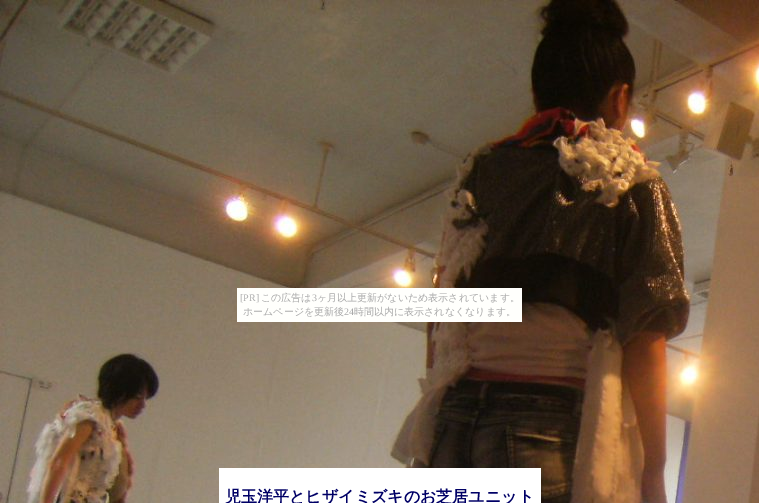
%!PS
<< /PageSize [759 503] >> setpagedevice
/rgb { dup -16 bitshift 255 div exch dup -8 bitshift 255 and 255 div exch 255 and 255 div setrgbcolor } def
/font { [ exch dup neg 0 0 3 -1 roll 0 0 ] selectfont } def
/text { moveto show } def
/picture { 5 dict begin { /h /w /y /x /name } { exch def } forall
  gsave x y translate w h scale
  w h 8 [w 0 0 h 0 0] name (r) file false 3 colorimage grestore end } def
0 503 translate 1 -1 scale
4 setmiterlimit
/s1 { /LiberationSerif-Regular 10 font 16#AAAAAA rgb } def
/s2 { /WenQuanYiZenHei-Medium 10 font 16#AAAAAA rgb } def
/s3 { /WenQuanYiZenHei-Bold 16 font 16#000066 rgb } def
16#FFFFFF rgb
0 0 759 503 rectfill
(pic1.raw) 0 0 759 503 picture
16#FFFFFC rgb
237 288 285 34 rectfill
s1
([PR]) 240 301 text
s2
(この広告は) 261 301 text
s1
(3) 312 301 text
s2
(ヶ月以上更新がないため表示されています。) 317 301 text
(ホームページを更新後) 243 315 text
s1
(24) 344 315 text
s2
(時間以内に表示されなくなります。) 354 315 text
16#FFFFFF rgb
219 468 322 35 rectfill
s3
(児玉洋平とヒザイミズキのお芝居ユニット) 225 502 text
showpage
